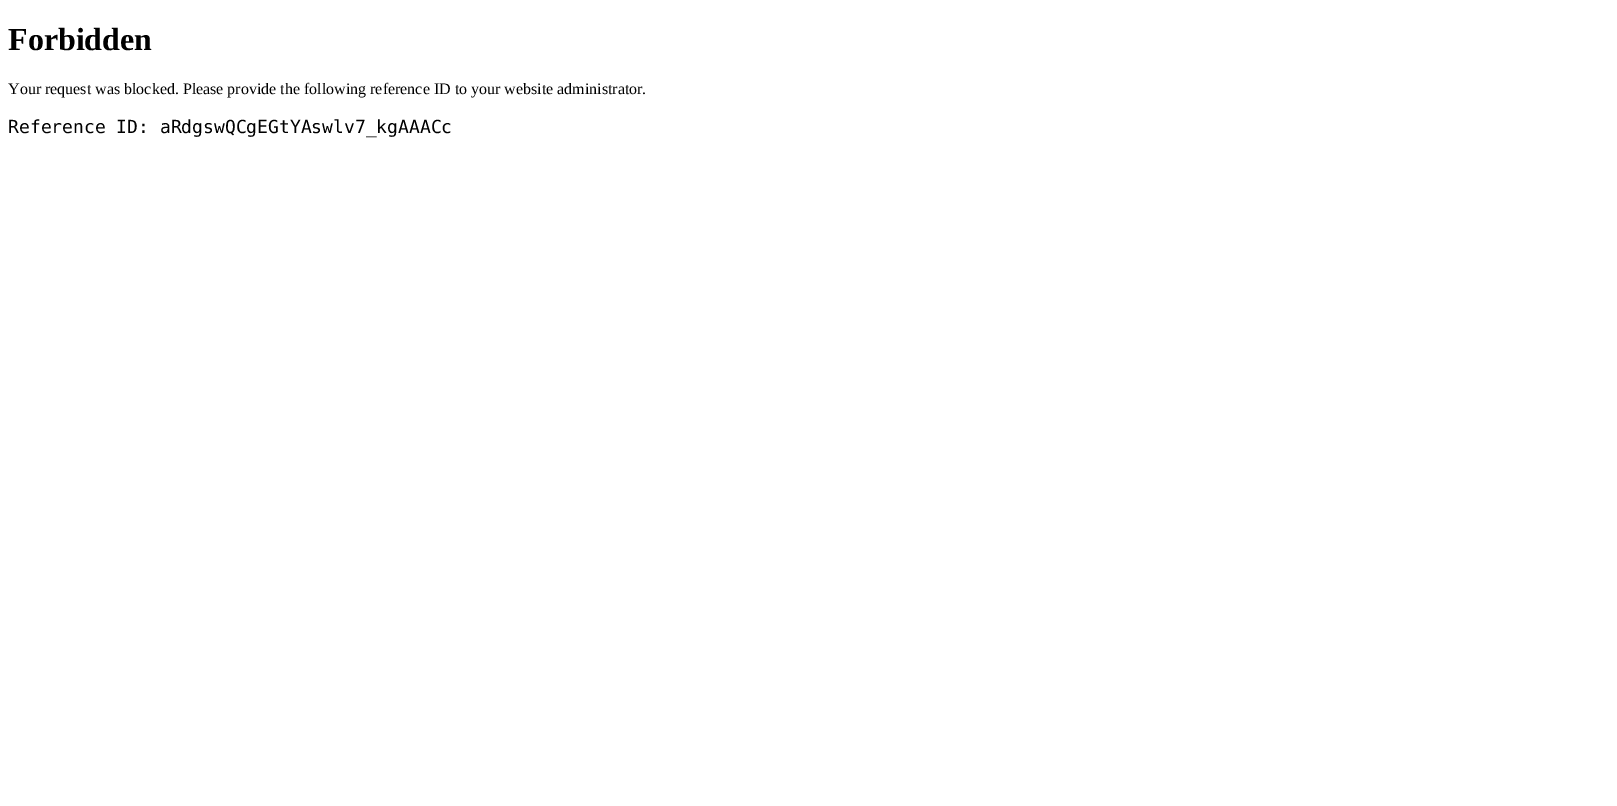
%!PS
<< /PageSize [1617 806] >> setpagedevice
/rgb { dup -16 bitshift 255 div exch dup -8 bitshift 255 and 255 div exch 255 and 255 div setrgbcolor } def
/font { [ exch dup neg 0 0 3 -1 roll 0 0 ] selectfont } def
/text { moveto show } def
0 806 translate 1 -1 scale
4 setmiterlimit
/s1 { /LiberationSerif-Bold 32 font 16#000000 rgb } def
/s2 { /LiberationSerif-Regular 16 font 16#000000 rgb } def
/s3 { /DejaVuSansMono-Regular 18 font 16#000000 rgb } def
16#FFFFFF rgb
0 0 1617 806 rectfill
s1
(Forbidden) 8 50 text
s2
(Your request was blocked. Please provide the following reference ID to your website administrator.) 8 94 text
s3
(Reference ID: aRdgswQCgEGtYAswlv7_kgAAACc) 8 133 text
showpage
